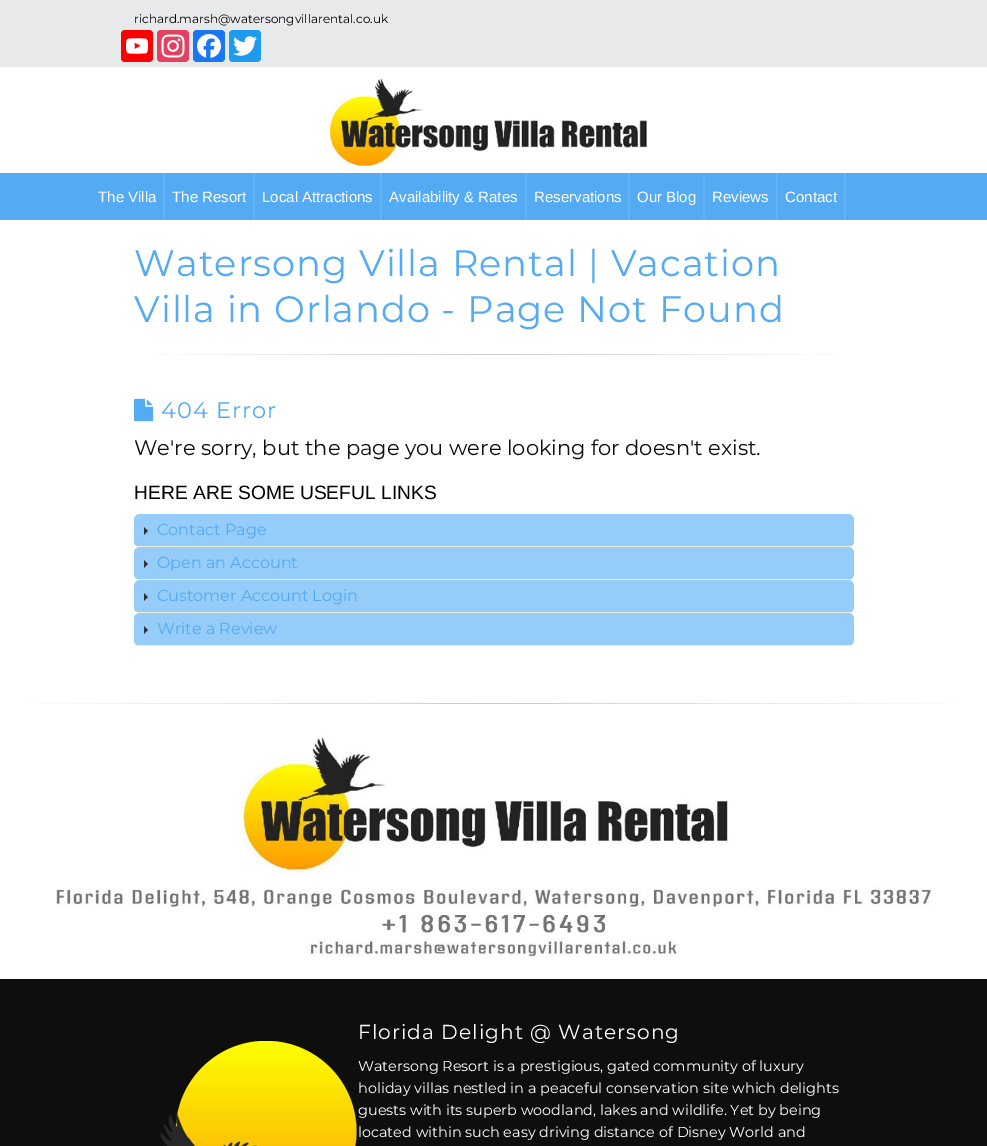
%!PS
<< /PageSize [987 1146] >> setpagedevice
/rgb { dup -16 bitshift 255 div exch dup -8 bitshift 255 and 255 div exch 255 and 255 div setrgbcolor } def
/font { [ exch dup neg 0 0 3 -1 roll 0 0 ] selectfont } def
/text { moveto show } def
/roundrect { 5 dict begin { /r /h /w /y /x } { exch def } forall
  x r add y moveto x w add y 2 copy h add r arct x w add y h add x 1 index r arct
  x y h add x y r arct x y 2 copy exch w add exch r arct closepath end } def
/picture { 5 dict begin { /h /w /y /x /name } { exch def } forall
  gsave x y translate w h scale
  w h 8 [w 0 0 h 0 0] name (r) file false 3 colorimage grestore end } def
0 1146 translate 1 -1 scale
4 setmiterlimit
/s1 { /Montserrat-Regular 12 font 16#000000 rgb } def
/s2 { /LiberationSans-Regular 15 font 16#FFFFFF rgb } def
/s3 { /Montserrat-Regular 21 font 16#0E0E0E rgb } def
/s4 { /LiberationSans-Regular 19.25 font 16#000000 rgb } def
/s5 { /Montserrat-Regular 16 font 16#55ABF3 rgb } def
/s6 { /Montserrat-Regular 14.4 font 16#FFFFFF rgb } def
16#FFFFFF rgb
0 0 987 1146 rectfill
16#E7E9EB rgb
0 0 987 67 rectfill
s1
(richard.marsh@watersongvillarental.co.uk) 134 23 text
16#FF0000 rgb
121 30 32 32 4 roundrect fill
(pic1.raw) 126 38 22 16 picture
16#E4405F rgb
157 30 32 32 4 roundrect fill
(pic2.raw) 161 34 24 24 picture
16#1877F2 rgb
193 30 32 32 4 roundrect fill
(pic3.raw) 197 34 24 24 picture
16#1D9BF0 rgb
229 30 32 32 4 roundrect fill
(pic4.raw) 233 36 24 20 picture
(pic5.raw) 325 78 322 90 picture
16#55ABF3 rgb
0 173 987 47 rectfill
16#66B3F4 rgb
163 173 2 47 rectfill
s2
(The Villa) 98 202 text
16#66B3F4 rgb
253 173 2 47 rectfill
s2
(The Resort) 172 202 text
16#66B3F4 rgb
380 173 2 47 rectfill
s2
(Local Attractions) 262 202 text
16#66B3F4 rgb
525 173 2 47 rectfill
s2
(Availability & Rates) 389 202 text
16#66B3F4 rgb
628 173 2 47 rectfill
s2
(Reservations) 534 202 text
16#66B3F4 rgb
703 173 2 47 rectfill
s2
(Our Blog) 637 202 text
16#66B3F4 rgb
776 173 2 47 rectfill
s2
(Reviews) 712 202 text
16#66B3F4 rgb
844 173 2 47 rectfill
s2
(Contact) 785 202 text
/Montserrat-Regular 36.75 font
16#55ABF3 rgb
134 276 moveto 1 0 (Watersong Villa Rental | Vacation) ashow
134 322 moveto 1 0 (Villa in Orlando - Page Not Found) ashow
gsave 152 354 moveto 836 354 lineto 836 355 lineto 152 355 lineto closepath clip newpath
<< /ShadingType 2 /ColorSpace /DeviceRGB /Coords [134 355 854 355] /Extend [true true] /Function << /FunctionType 3 /Domain [0 1] /Functions [<< /FunctionType 2 /Domain [0 1] /C0 [1 1 1] /C1 [0.8 0.8 0.8] /N 1 >> << /FunctionType 2 /Domain [0 1] /C0 [0.8 0.8 0.8] /C1 [1 1 1] /N 1 >>] /Bounds [0.5] /Encode [0 1 0 1] >> >> shfill grestore
(pic6.raw) 134 398 20 24 picture
/Montserrat-Regular 22.5 font
161 418 moveto 1 0 (404 Error) ashow
s3
(We're sorry, but the page you were looking for doesn't exist.) 134 455 text
s4
(HERE ARE SOME USEFUL LINKS) 134 499 text
16#96CCFA rgb
134 514 720 33 6 roundrect fill
16#EDEDDE rgb
137 546 714 1 rectfill
16#333333 rgb
144 535 moveto 144 527 lineto 148 531 lineto closepath fill
s5
(Contact Page) 157 535 text
16#96CCFA rgb
134 547 720 33 6 roundrect fill
16#EDEDDE rgb
137 579 714 1 rectfill
16#333333 rgb
144 568 moveto 144 560 lineto 148 564 lineto closepath fill
s5
(Open an Account) 157 568 text
16#96CCFA rgb
134 580 720 33 6 roundrect fill
16#EDEDDE rgb
137 612 714 1 rectfill
16#333333 rgb
144 601 moveto 144 593 lineto 148 597 lineto closepath fill
s5
(Customer Account Login) 157 601 text
16#96CCFA rgb
134 613 720 33 6 roundrect fill
16#EDEDDE rgb
137 645 714 1 rectfill
16#333333 rgb
144 634 moveto 144 626 lineto 148 630 lineto closepath fill
s5
(Write a Review) 157 634 text
gsave 24 703 moveto 963 703 lineto 963 704 lineto 24 704 lineto closepath clip newpath
<< /ShadingType 2 /ColorSpace /DeviceRGB /Coords [0 704 987 704] /Extend [true true] /Function << /FunctionType 3 /Domain [0 1] /Functions [<< /FunctionType 2 /Domain [0 1] /C0 [1 1 1] /C1 [0.8 0.8 0.8] /N 1 >> << /FunctionType 2 /Domain [0 1] /C0 [0.8 0.8 0.8] /C1 [1 1 1] /N 1 >>] /Bounds [0.5] /Encode [0 1 0 1] >> >> shfill grestore
(pic7.raw) 56 735 877 222 picture
16#0E0E0E rgb
0 979 987 167 rectfill
/Montserrat-Regular 20.2 font
16#FFFFFF rgb
358 1039 moveto 1 0 (Florida Delight @ Watersong) ashow
(pic8.raw) 160 1041 197 105 picture
s6
(Watersong Resort is a prestigious, gated community of luxury) 358 1071 text
(holiday villas nestled in a peaceful conservation site which delights) 358 1093 text
(guests with its superb woodland, lakes and wildlife. Yet by being) 358 1115 text
(located within such easy driving distance of Disney World and) 358 1137 text
showpage
